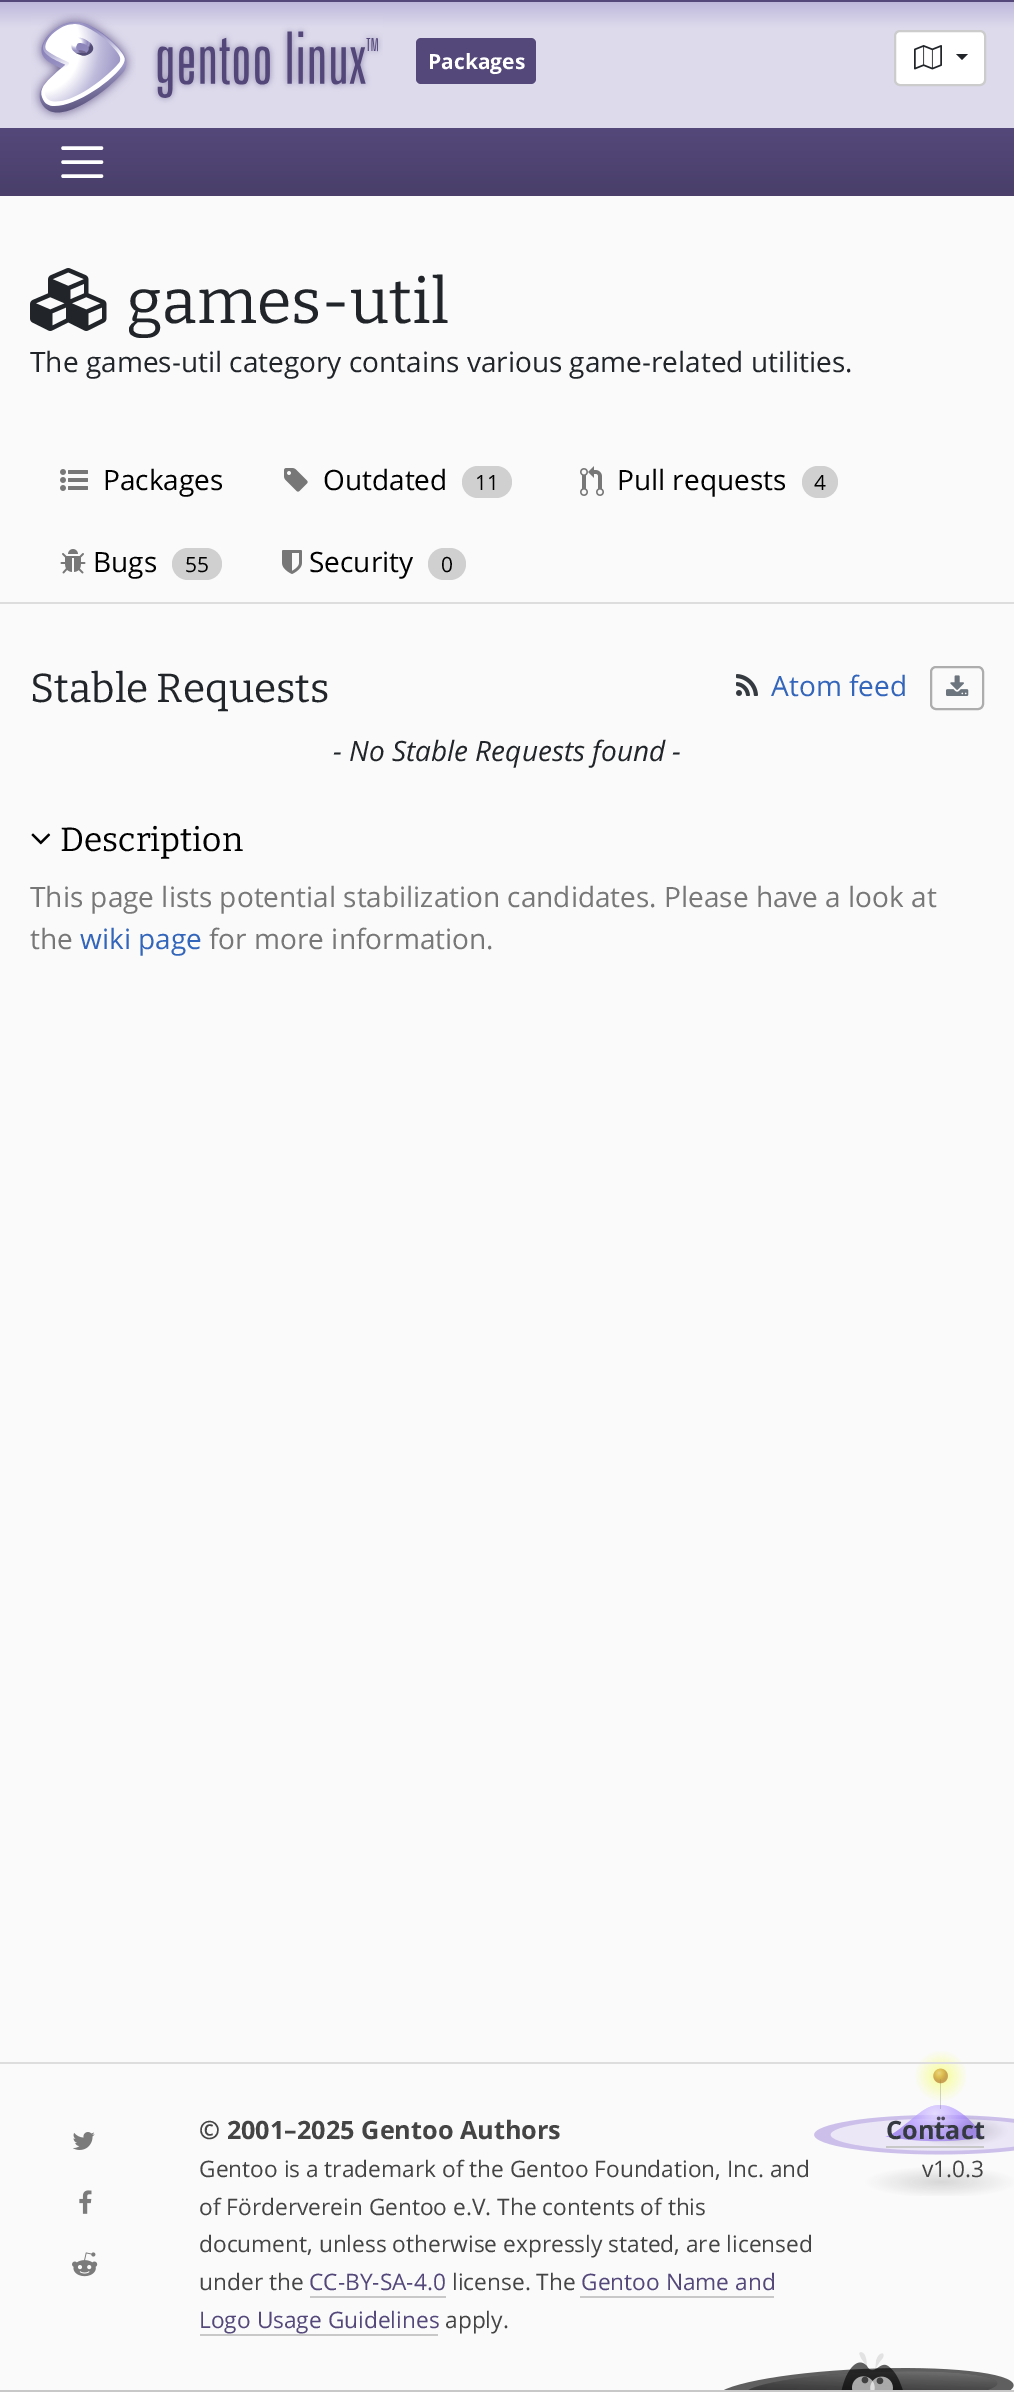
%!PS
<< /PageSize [1014 2392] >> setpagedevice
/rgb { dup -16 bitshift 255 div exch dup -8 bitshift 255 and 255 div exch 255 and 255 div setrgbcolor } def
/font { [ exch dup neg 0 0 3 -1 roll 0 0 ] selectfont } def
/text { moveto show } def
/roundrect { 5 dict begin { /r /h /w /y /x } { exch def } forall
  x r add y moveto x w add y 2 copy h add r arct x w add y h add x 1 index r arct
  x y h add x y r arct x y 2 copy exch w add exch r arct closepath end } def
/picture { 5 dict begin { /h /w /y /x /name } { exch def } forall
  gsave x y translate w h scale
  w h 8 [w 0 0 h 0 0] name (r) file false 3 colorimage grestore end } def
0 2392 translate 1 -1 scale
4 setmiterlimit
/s1 { /OpenSans-Bold 21 font 16#FFFFFF rgb } def
/s2 { /Bitter-Regular 63 font 16#212529 rgb } def
/s3 { /OpenSans-Regular 28 font 16#212529 rgb } def
/s4 { /OpenSans-Regular 28 font 16#000000 rgb } def
/s5 { /OpenSans-Regular 21 font 16#000000 rgb } def
/s6 { /Bitter-Regular 40.5 font 16#212529 rgb } def
/s7 { /OpenSans-Regular 28 font 16#3366BB rgb } def
/s8 { /OpenSans-Italic 28 font 16#212529 rgb } def
/s9 { /Bitter-Regular 33.5 font 16#000000 rgb } def
/s10 { /OpenSans-Regular 28 font 16#777777 rgb } def
/s11 { /OpenSans-Bold 25.25 font 16#444444 rgb } def
/s12 { /OpenSans-Regular 22.7 font 16#444444 rgb } def
/s13 { /OpenSans-Regular 22.7 font 16#54487A rgb } def
/s14 { /OpenSans-Bold 25.25 font 16#343A40 rgb } def
16#FAFAFA rgb
0 0 1014 2392 rectfill
16#54487A rgb
0 0 1014 2 rectfill
gsave 0 2 moveto 1014 2 lineto 1014 128 lineto 0 128 lineto closepath clip newpath
<< /ShadingType 2 /ColorSpace /DeviceRGB /Coords [507 2 507 128] /Extend [true true] /Function << /FunctionType 3 /Domain [0 1] /Functions [<< /FunctionType 2 /Domain [0 1] /C0 [0.745 0.722 0.859] /C1 [0.867 0.855 0.925] /N 1 >> << /FunctionType 2 /Domain [0 1] /C0 [0.867 0.855 0.925] /C1 [0.867 0.855 0.925] /N 1 >>] /Bounds [0.2] /Encode [0 1 0 1] >> >> shfill grestore
(pic1.raw) 31 13 352 107 picture
416 38 120 46 5 roundrect fill
s1
(Packages) 428 69 text
895 31 90 54 5 roundrect gsave fill grestore
16#CCCCCC rgb
2 setlinewidth
stroke
(pic2.raw) 914 45 28 25 picture
16#212529 rgb
956 54 moveto 968 54 lineto 962 60 lineto closepath fill
gsave 0 128 moveto 1014 128 lineto 1014 196 lineto 0 196 lineto closepath clip newpath
<< /ShadingType 2 /ColorSpace /DeviceRGB /Coords [507 128 507 196] /Extend [true true] /Function << /FunctionType 2 /Domain [0 1] /C0 [0.329 0.282 0.478] /C1 [0.286 0.247 0.416] /N 1 >> >> shfill grestore
16#FFFFFF rgb
3.5 setlinewidth
1 setlinecap
63 148 moveto 101.5 148 lineto 63 162 moveto 101.5 162 lineto 63 176 moveto 101.5 176 lineto stroke
(pic3.raw) 30 268 77 63 picture
s2
(games-util) 127 323 text
s3
(The games-util category contains various game-related utilities.) 30 372 text
(pic4.raw) 60 469 28 22 picture
s4
(Packages) 103 490 text
(pic5.raw) 284 468 24 24 picture
(Outdated) 323 490 text
16#D0D0D0 rgb
462 466 50 32 16 roundrect fill
s5
(11) 475 490 text
(pic6.raw) 580 466 24 30 picture
s4
(Pull requests) 617 490 text
16#D0D0D0 rgb
802 466 36 32 16 roundrect fill
s5
(4) 814 490 text
(pic7.raw) 60 549 26 25 picture
s4
(Bugs) 93 572 text
16#D0D0D0 rgb
172 548 50 32 16 roundrect fill
s5
(55) 185 572 text
(pic8.raw) 282 550 20 24 picture
s4
(Security) 309 572 text
16#D0D0D0 rgb
428 548 38 32 16 roundrect fill
s5
(0) 441 572 text
16#DDDDDD rgb
0 602 1014 2 rectfill
s6
(Stable Requests) 30 702 text
(pic9.raw) 736 674 22 22 picture
s7
(Atom feed) 771 696 text
16#ADADAD rgb
2 setlinewidth
0 setlinecap
931 667 52 42 5 roundrect stroke
(pic10.raw) 946 675 23 21 picture
s8
(- No Stable Requests found -) 333 761 text
(pic11.raw) 31 833 20 12 picture
s9
(Description) 60 851 text
s10
(This page lists potential stabilization candidates. Please have a look at) 30 907 text
(the) 30 949 text
s7
(wiki page) 80 949 text
s10
(for more information.) 209 949 text
(pic12.raw) 814 2051 200 145 picture
(pic13.raw) 724 2352 290 38 picture
16#C8C8C8 rgb
0 2390 1014 2 rectfill
16#DDDDDD rgb
0 2062 1014 2 rectfill
(pic14.raw) 73 2132 22 18 picture
(pic15.raw) 79 2190 13 24 picture
(pic16.raw) 72 2252 26 25 picture
s11
(© 2001–2025 Gentoo Authors) 199 2139 text
s12
(Gentoo is a trademark of the Gentoo Foundation, Inc. and) 199 2177 text
(of Förderverein Gentoo e.V. The contents of this) 199 2215 text
(document, unless otherwise expressly stated, are licensed) 199 2252 text
(under the) 199 2290 text
s13
(CC-BY-SA-4.0) 309 2290 text
16#C8C8C8 rgb
310 2296 136 2 rectfill
s12
(license. The) 452 2290 text
s13
(Gentoo Name and) 581 2290 text
16#C8C8C8 rgb
580 2296 194 2 rectfill
s13
(Logo Usage Guidelines) 199 2328 text
16#C8C8C8 rgb
200 2334 238 2 rectfill
s12
(apply.) 445 2328 text
s14
(Contact) 886 2139 text
16#C8C8C8 rgb
886 2146 98 2 rectfill
s12
(v1.0.3) 922 2177 text
showpage
